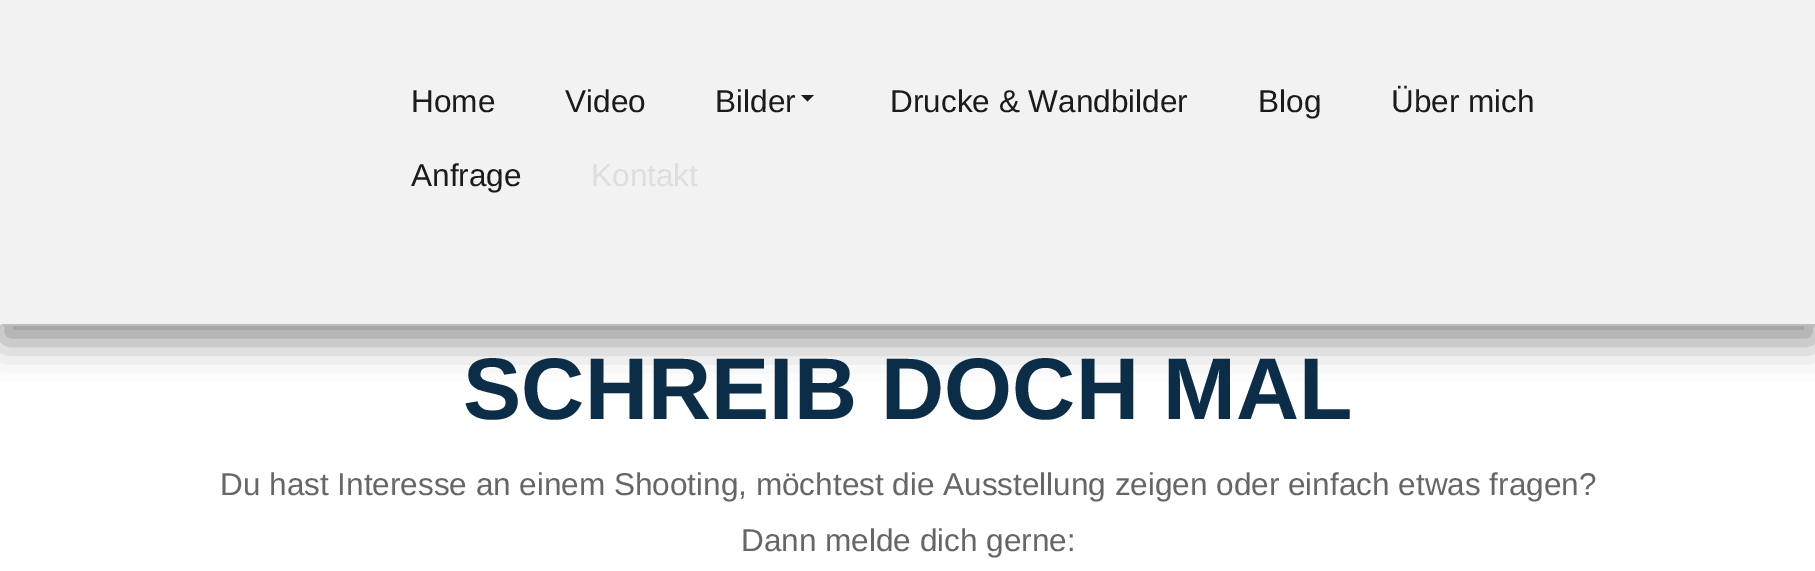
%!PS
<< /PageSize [1815 571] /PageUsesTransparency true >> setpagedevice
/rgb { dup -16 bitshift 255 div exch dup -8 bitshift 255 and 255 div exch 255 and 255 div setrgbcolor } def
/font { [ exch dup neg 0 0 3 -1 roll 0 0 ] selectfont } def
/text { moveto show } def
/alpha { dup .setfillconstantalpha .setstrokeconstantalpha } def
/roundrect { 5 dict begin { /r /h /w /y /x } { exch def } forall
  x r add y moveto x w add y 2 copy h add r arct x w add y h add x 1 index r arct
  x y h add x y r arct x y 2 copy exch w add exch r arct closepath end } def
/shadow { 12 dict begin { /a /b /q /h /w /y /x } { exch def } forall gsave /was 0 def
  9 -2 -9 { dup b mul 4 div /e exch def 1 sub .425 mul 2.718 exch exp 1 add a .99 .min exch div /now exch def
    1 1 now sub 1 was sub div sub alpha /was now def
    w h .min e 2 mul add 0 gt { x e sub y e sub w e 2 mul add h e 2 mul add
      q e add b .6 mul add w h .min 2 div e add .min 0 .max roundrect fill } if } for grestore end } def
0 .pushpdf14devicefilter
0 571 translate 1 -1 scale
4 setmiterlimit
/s1 { /LiberationSans-Regular 31.5 font 16#1B1B1D rgb } def
/s2 { /LiberationSans-Regular 31.5 font 16#DEDEDE rgb } def
/s3 { /LiberationSans-Bold 87.5 font 16#0C2D48 rgb } def
/s4 { /LiberationSans-Regular 31.5 font 16#666666 rgb } def
16#FFFFFF rgb
0 0 1815 571 rectfill
gsave
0 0 moveto 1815 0 lineto 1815 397 lineto 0 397 lineto closepath 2 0 moveto 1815 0 lineto 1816 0 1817 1 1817 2 curveto 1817 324 lineto 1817 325 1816 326 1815 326 curveto 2 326 lineto 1 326 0 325 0 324 curveto 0 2 lineto 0 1 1 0 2 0 curveto closepath eoclip newpath
16#000000 rgb
0 18 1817 325 2 17.5 0.41 shadow
grestore
0.26 alpha
16#000000 rgb
2 324 1813 2 rectfill
1 alpha
16#F2F2F2 rgb
0 0 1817 324 2 roundrect fill
s1
(Home) 411 112 text
(Video) 565 112 text
(Bilder) 715 112 text
801 95 moveto 814 95 lineto 807.5 101.5 lineto closepath fill
(Drucke & Wandbilder) 890 112 text
(Blog) 1258 112 text
(Über mich) 1391 112 text
(Anfrage) 411 186 text
s2
(Kontakt) 591 186 text
s3
(SCHREIB DOCH MAL) 463 419 text
s4
(Du hast Interesse an einem Shooting, möchtest die Ausstellung zeigen oder einfach etwas fragen?) 220 495 text
(Dann melde dich gerne:) 741 551 text
.poppdf14devicefilter showpage
